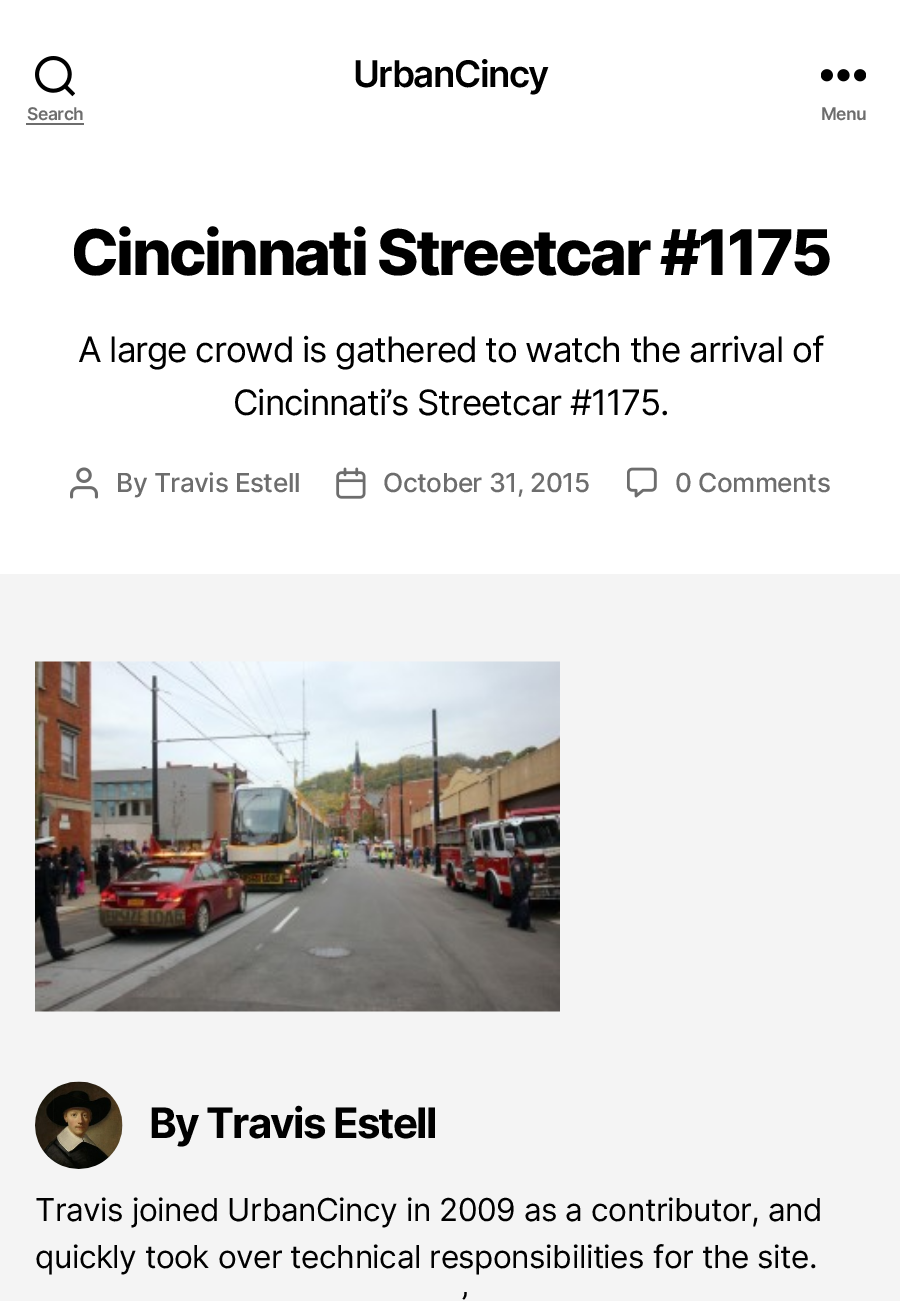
%!PS
<< /PageSize [900 1301] >> setpagedevice
/rgb { dup -16 bitshift 255 div exch dup -8 bitshift 255 and 255 div exch 255 and 255 div setrgbcolor } def
/font { [ exch dup neg 0 0 3 -1 roll 0 0 ] selectfont } def
/picture { 5 dict begin { /h /w /y /x /name } { exch def } forall
  gsave x y translate w h scale
  w h 8 [w 0 0 h 0 0] name (r) file false 3 colorimage grestore end } def
0 1301 translate 1 -1 scale
4 setmiterlimit
16#F4F4F4 rgb
0 0 900 1301 rectfill
16#FFFFFF rgb
0 0 900 574 rectfill
/Inter-SemiBold 36.75 font
16#000000 rgb
353 87 moveto -1.5 0 (UrbanCincy) ashow
(pic1.raw) 35 56 40 41 picture
/Inter-SemiBold 17.5 font
16#6D6D6D rgb
27 120 moveto -0.47 0 (Search) ashow
26 123 58 2 rectfill
(pic2.raw) 821 69 45 13 picture
821 120 moveto -0.47 0 (Menu) ashow
/Inter-ExtraBold 63 font
16#000000 rgb
71 275 moveto -2.6 0 (Cincinnati Streetcar #1175) ashow
/Inter-Regular 35 font
78 362 moveto -1.1 0 (A large crowd is gathered to watch the arrival of) ashow
233 415 moveto -1.1 0 (Cincinnati’s Streetcar #1175.) ashow
(pic3.raw) 70 467 28 32 picture
/Inter-Medium 26.25 font
16#6D6D6D rgb
116 492 moveto -0.5 0 (By Travis Estell) ashow
(pic4.raw) 336 467 30 32 picture
383 492 moveto -0.5 0 (October 31, 2015) ashow
(pic5.raw) 627 467 30 31 picture
675 492 moveto -0.5 0 (0 Comments) ashow
(pic6.raw) 35 661 525 351 picture
(pic7.raw) 35 1081 88 88 picture
/Inter-Bold 42 font
16#000000 rgb
149 1138 moveto -1.75 0 (By Travis Estell) ashow
/Inter-Regular 31.5 font
35 1221 moveto -0.47 0 (Travis joined UrbanCincy in 2009 as a contributor, and) ashow
35 1268 moveto -0.47 0 (quickly took over technical responsibilities for the site.) ashow
462 1315 moveto -0.47 0 (’) ashow
showpage
